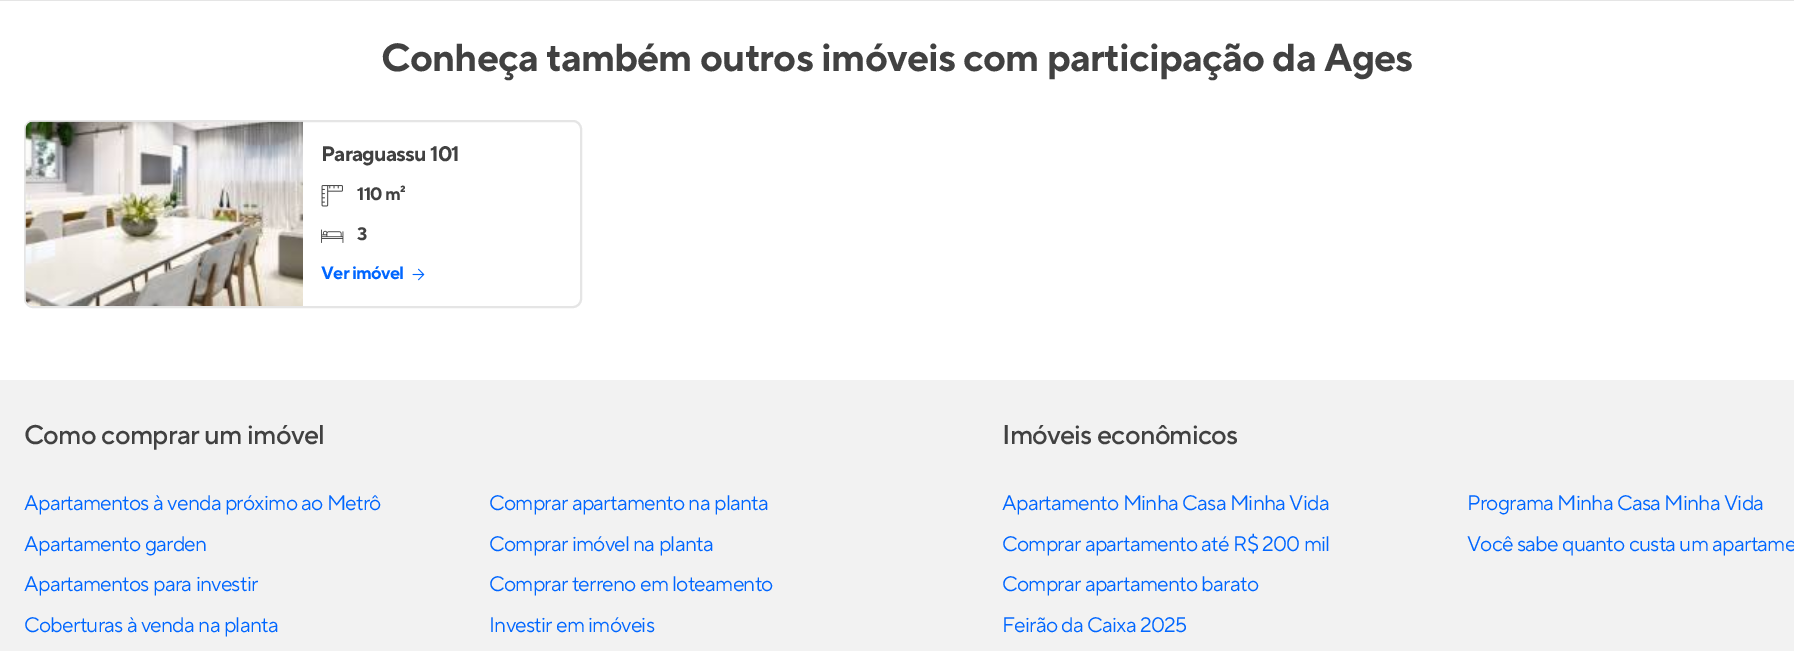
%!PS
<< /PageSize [1794 651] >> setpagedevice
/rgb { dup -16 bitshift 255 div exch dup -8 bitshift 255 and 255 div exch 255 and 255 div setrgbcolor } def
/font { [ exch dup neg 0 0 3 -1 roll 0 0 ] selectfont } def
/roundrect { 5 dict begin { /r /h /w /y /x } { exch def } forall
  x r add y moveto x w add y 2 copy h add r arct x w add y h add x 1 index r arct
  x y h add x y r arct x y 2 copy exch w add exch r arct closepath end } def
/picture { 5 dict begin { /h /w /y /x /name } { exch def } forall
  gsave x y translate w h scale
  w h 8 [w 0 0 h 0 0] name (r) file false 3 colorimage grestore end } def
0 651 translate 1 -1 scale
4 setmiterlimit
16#FFFFFF rgb
0 0 1794 651 rectfill
16#E5E5E5 rgb
0 0 1794 1 rectfill
/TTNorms-Bold 39 font
16#414141 rgb
381 71 moveto -0.75 0 (Conheça também outros imóveis com participação da Ages) ashow
16#E5E5E5 rgb
2 setlinewidth
25 121 556 186 8 roundrect stroke
(pic1.raw) 25 121 278 185 picture
/TTNorms-Bold 21 font
16#414141 rgb
321 161 moveto -0.75 0 (Paraguassu 101) ashow
(pic2.raw) 321 185 22 22 picture
/TTNorms-Bold 18 font
357 200 moveto -0.75 0 (110 m²) ashow
(pic3.raw) 321 229 23 14 picture
357 240 moveto -0.75 0 (3) ashow
16#0066FF rgb
321 279 moveto -0.75 0 (Ver imóvel) ashow
(pic4.raw) 412 268 13 13 picture
16#F2F2F2 rgb
0 380 1794 271 rectfill
/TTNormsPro-Medium 27 font
16#414141 rgb
24 444 moveto -0.75 0 (Como comprar um imóvel) ashow
/TTNorms-Regular 21 font
16#0066FF rgb
24 510 moveto -0.75 0 (Apartamentos à venda próximo ao Metrô) ashow
489 510 moveto -0.75 0 (Comprar apartamento na planta) ashow
24 551 moveto -0.75 0 (Apartamento garden) ashow
489 551 moveto -0.75 0 (Comprar imóvel na planta) ashow
24 591 moveto -0.75 0 (Apartamentos para investir) ashow
489 591 moveto -0.75 0 (Comprar terreno em loteamento) ashow
24 632 moveto -0.75 0 (Coberturas à venda na planta) ashow
489 632 moveto -0.75 0 (Investir em imóveis) ashow
/TTNormsPro-Medium 27 font
16#414141 rgb
1002 444 moveto -0.75 0 (Imóveis econômicos) ashow
/TTNorms-Regular 21 font
16#0066FF rgb
1002 510 moveto -0.75 0 (Apartamento Minha Casa Minha Vida) ashow
1467 510 moveto -0.75 0 (Programa Minha Casa Minha Vida) ashow
1002 551 moveto -0.75 0 (Comprar apartamento até R$ 200 mil) ashow
1467 551 moveto -0.75 0 (Você sabe quanto custa um apartame) ashow
1002 591 moveto -0.75 0 (Comprar apartamento barato) ashow
1002 632 moveto -0.75 0 (Feirão da Caixa 2025) ashow
showpage
